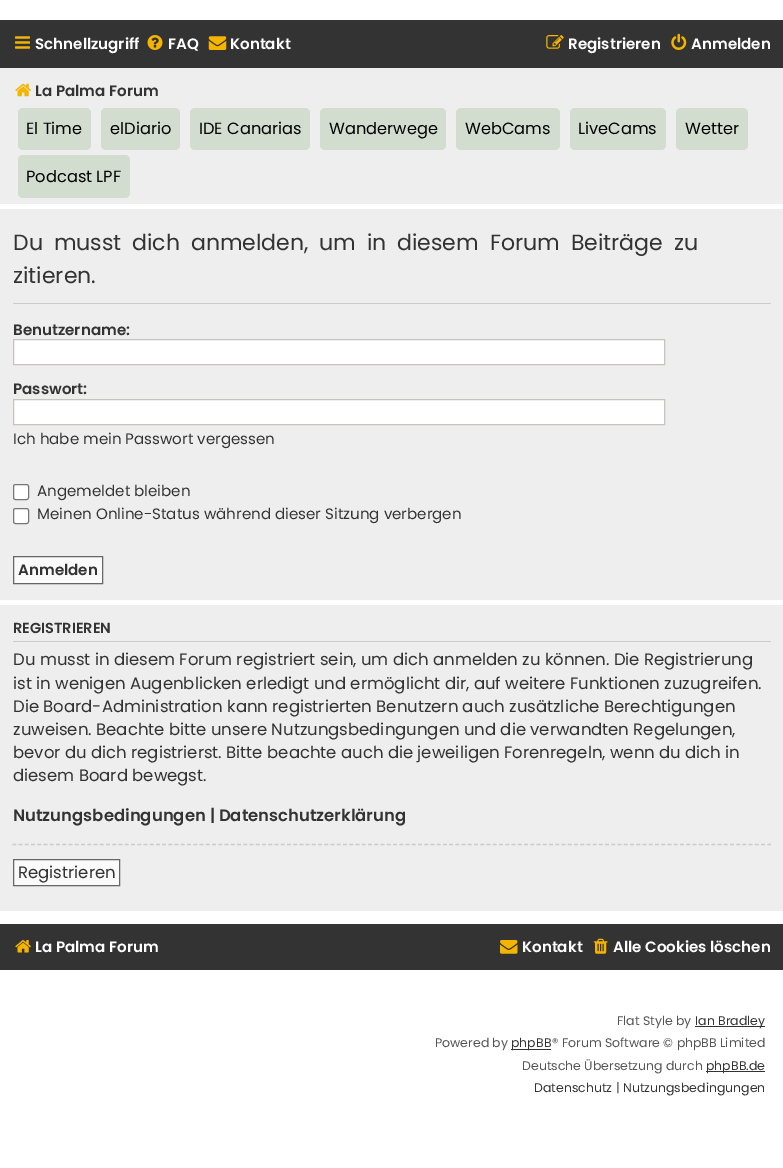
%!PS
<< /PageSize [783 1168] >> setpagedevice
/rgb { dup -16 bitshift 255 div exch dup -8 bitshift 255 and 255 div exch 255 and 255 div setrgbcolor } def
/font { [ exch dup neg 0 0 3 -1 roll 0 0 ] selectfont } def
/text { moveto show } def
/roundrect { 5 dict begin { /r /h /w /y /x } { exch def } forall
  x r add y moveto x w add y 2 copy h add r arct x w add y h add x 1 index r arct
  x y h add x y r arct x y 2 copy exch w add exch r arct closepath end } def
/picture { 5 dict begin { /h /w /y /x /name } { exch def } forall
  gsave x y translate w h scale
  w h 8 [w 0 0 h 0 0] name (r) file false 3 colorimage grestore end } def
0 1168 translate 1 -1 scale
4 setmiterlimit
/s1 { /Poppins-SemiBold 15.1 font 16#FFFFFF rgb } def
/s2 { /Poppins-SemiBold 15.1 font 16#333333 rgb } def
/s3 { /Poppins-Regular 16.25 font 16#000000 rgb } def
/s4 { /Poppins-Regular 22 font 16#333333 rgb } def
/s5 { /Poppins-Regular 15.1 font 16#333333 rgb } def
/s6 { /Poppins-SemiBold 14.5 font 16#333333 rgb } def
/s7 { /Poppins-Regular 16.5 font 16#333333 rgb } def
/s8 { /Poppins-SemiBold 16.5 font 16#333333 rgb } def
/s9 { /Poppins-Regular 12.5 font 16#555555 rgb } def
/s10 { /Poppins-Regular 12.5 font 16#333333 rgb } def
16#FFFFFF rgb
0 0 783 1168 rectfill
16#333333 rgb
0 20 783 48 rectfill
(pic1.raw) 15 36 15 13 picture
s1
(Schnellzugriff) 35 49 text
(pic2.raw) 147 35 16 15 picture
(FAQ) 168 49 text
(pic3.raw) 208 36 19 14 picture
(Kontakt) 230 49 text
(pic4.raw) 546 35 18 14 picture
(Registrieren) 568 49 text
(pic5.raw) 671 33 16 17 picture
(Anmelden) 691 49 text
16#EEEEEE rgb
0 68 783 136 rectfill
(pic6.raw) 15 83 16 14 picture
s2
(La Palma Forum) 35 96 text
16#D2DCCF rgb
18 108 73 42 5 roundrect fill
s3
(El Time) 26 134 text
16#D2DCCF rgb
101 108 79 42 5 roundrect fill
s3
(elDiario) 110 134 text
16#D2DCCF rgb
190 108 120 42 5 roundrect fill
s3
(IDE Canarias) 199 134 text
16#D2DCCF rgb
320 108 126 42 5 roundrect fill
s3
(Wanderwege) 329 134 text
16#D2DCCF rgb
456 108 104 42 5 roundrect fill
s3
(WebCams) 465 134 text
16#D2DCCF rgb
570 108 96 42 5 roundrect fill
s3
(LiveCams) 578 134 text
16#D2DCCF rgb
676 108 72 42 5 roundrect fill
s3
(Wetter) 685 134 text
16#D2DCCF rgb
18 155 112 43 5 roundrect fill
s3
(Podcast LPF) 26 182 text
16#EEEEEE rgb
0 209 783 391 rectfill
16#CCCCCC rgb
13 303 758 1 rectfill
/Poppins-Regular 22 font
16#333333 rgb
13 250 moveto 5 0 32 (Du musst dich anmelden, um in diesem Forum Beiträge zu) widthshow
(zitieren.) 13 283 text
s2
(Benutzername:) 13 335 text
16#FFFFFF rgb
13.5 339.5 moveto 664.5 339.5 lineto 664.5 364.5 lineto 13.5 364.5 lineto closepath gsave fill grestore
16#C7C3BF rgb
stroke
s2
(Passwort:) 13 394 text
16#FFFFFF rgb
13.5 399.5 moveto 664.5 399.5 lineto 664.5 424.5 lineto 13.5 424.5 lineto closepath gsave fill grestore
16#C7C3BF rgb
stroke
s5
(Ich habe mein Passwort vergessen) 13 444 text
16#FFFFFF rgb
13.5 484.5 15 15 2 roundrect gsave fill grestore
16#767676 rgb
stroke
s5
(Angemeldet bleiben) 37 496 text
16#FFFFFF rgb
13.5 508.5 15 15 2 roundrect gsave fill grestore
16#767676 rgb
stroke
s5
(Meinen Online-Status während dieser Sitzung verbergen) 37 519 text
16#FAFAFA rgb
13.5 556.5 moveto 102.5 556.5 lineto 102.5 583.5 lineto 13.5 583.5 lineto closepath gsave fill grestore
16#666666 rgb
stroke
s2
(Anmelden) 18 575 text
16#EEEEEE rgb
0 605 783 306 rectfill
16#CCCCCC rgb
13 641 758 1 rectfill
s6
(REGISTRIEREN) 13 633 text
s7
(Du musst in diesem Forum registriert sein, um dich anmelden zu können. Die Registrierung) 13 665 text
(ist in wenigen Augenblicken erledigt und ermöglicht dir, auf weitere Funktionen zuzugreifen.) 13 689 text
(Die Board-Administration kann registrierten Benutzern auch zusätzliche Berechtigungen) 13 712 text
(zuweisen. Beachte bitte unsere Nutzungsbedingungen und die verwandten Regelungen,) 13 735 text
(bevor du dich registrierst. Bitte beachte auch die jeweiligen Forenregeln, wenn du dich in) 13 758 text
(diesem Board bewegst.) 13 781 text
s8
(Nutzungsbedingungen | Datenschutzerklärung) 13 821 text
16#CCCCCC rgb
1.2 setlinewidth
[3.75 2.49] 0 setdash
12.5 844.5 moveto 771 844.5 lineto stroke
16#FAFAFA rgb
13.5 859.5 moveto 119.5 859.5 lineto 119.5 885.5 lineto 13.5 885.5 lineto closepath gsave fill grestore
16#666666 rgb
1 setlinewidth
[] 0 setdash
stroke
s7
(Registrieren) 18 878 text
0 924 783 46 rectfill
(pic7.raw) 15 940 16 13 picture
s1
(La Palma Forum) 35 952 text
(pic8.raw) 500 940 18 14 picture
(Kontakt) 522 952 text
(pic9.raw) 593 938 15 16 picture
(Alle Cookies löschen) 613 952 text
s9
(Flat Style by) 617 1025 text
16#333333 rgb
695 1026 70 1 rectfill
(Ian Bradley) 695 1025 text
s9
(Powered by) 435 1047 text
16#333333 rgb
511 1049 40 1 rectfill
(phpBB) 511 1047 text
s9
(® Forum Software © phpBB Limited) 552 1047 text
(Deutsche Übersetzung durch) 522 1070 text
16#333333 rgb
706 1071 59 1 rectfill
(phpBB.de) 706 1070 text
(Datenschutz) 534 1092 text
s9
(|) 616 1092 text
s10
(Nutzungsbedingungen) 623 1092 text
showpage
